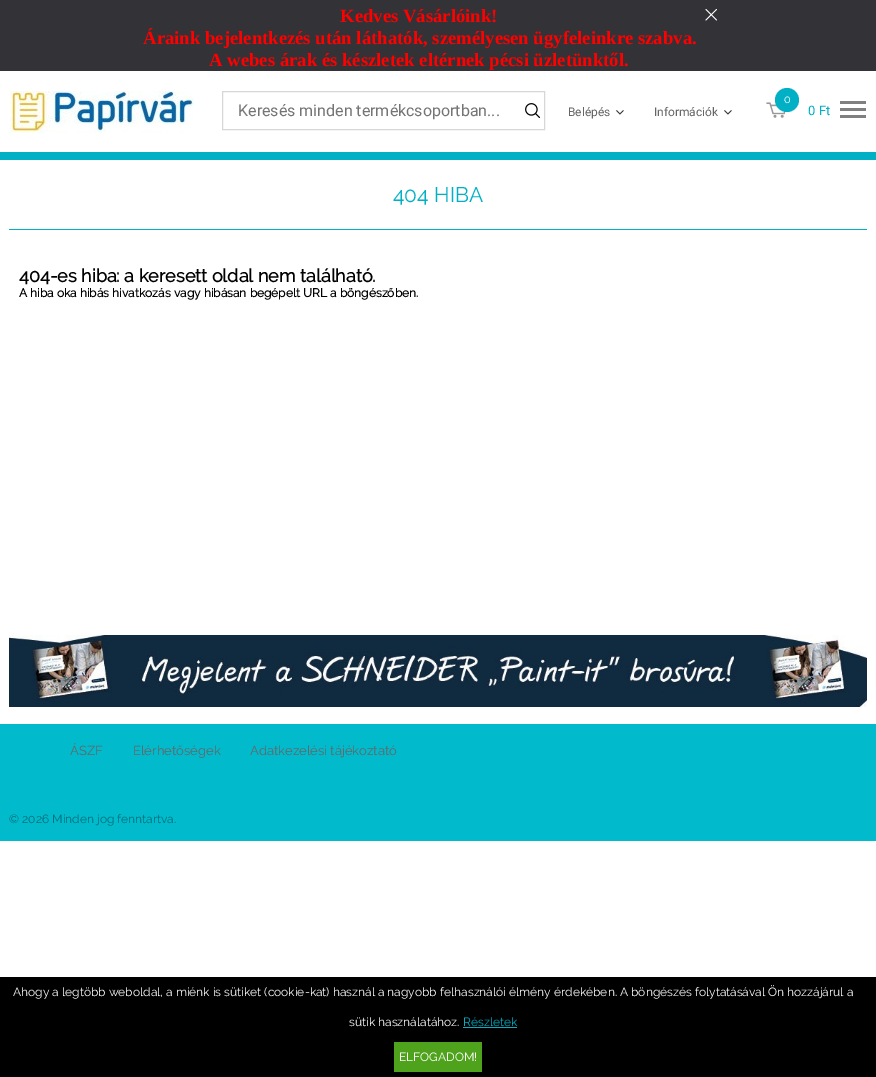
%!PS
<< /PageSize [876 1077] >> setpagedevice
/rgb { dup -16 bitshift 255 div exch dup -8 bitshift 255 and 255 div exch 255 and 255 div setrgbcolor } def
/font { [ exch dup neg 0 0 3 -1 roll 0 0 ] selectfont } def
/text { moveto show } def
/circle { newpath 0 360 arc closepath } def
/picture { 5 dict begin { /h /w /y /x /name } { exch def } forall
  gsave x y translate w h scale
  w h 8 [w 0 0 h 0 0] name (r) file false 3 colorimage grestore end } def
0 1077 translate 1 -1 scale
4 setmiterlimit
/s1 { /LiberationSerif-Bold 18.7 font 16#FF0000 rgb } def
/s2 { /Roboto-Regular 16 font 16#757575 rgb } def
/s3 { /Roboto-Regular 12 font 16#666666 rgb } def
/s4 { /Raleway-Regular 11 font 16#FFFFFF rgb } def
/s5 { /Roboto-Regular 13 font 16#01B0C5 rgb } def
/s6 { /Raleway-Regular 21 font 16#01B0C5 rgb } def
/s7 { /Raleway-Bold 18 font 16#000000 rgb } def
/s8 { /Raleway-Bold 12 font 16#000000 rgb } def
/s9 { /Raleway-Regular 13 font 16#666666 rgb } def
/s10 { /Raleway-Regular 12 font 16#006F7A rgb } def
/s11 { /Raleway-Regular 12 font 16#FFFFFF rgb } def
/s12 { /Raleway-Regular 12 font 16#01B0C5 rgb } def
16#FFFFFF rgb
0 0 876 1077 rectfill
16#323237 rgb
0 0 876 71 rectfill
s1
(Kedves Vásárlóink!) 340 22 text
(Áraink bejelentkezés után láthatók, személyesen ügyfeleinkre szabva.) 143 44 text
(A webes árak és készletek eltérnek pécsi üzletünktől.) 209 66 text
(pic1.raw) 705 9 12 12 picture
16#01B0C5 rgb
0 152 876 8 rectfill
(pic2.raw) 10 91 184 42 picture
16#D7D7D7 rgb
222.5 91.5 322 38 rectstroke
s2
(Keresés minden termékcsoportban...) 238 116 text
(pic3.raw) 525 103 16 15 picture
s3
(Belépés) 568 116 text
(pic4.raw) 616 110 8 5 picture
(Információk) 654 116 text
(pic4.raw) 724 110 8 5 picture
(pic5.raw) 766 102 20 16 picture
16#01B0C5 rgb
787 100 12 circle fill
s4
(0) 784 103 text
s5
(0 Ft) 808 115 text
16#808080 rgb
840 101 26 3 rectfill
840 108 26 3 rectfill
840 115 26 3 rectfill
16#01B0C5 rgb
9 229 858 1 rectfill
s6
(404 HIBA) 393 202 text
s7
(404-es hiba: a keresett oldal nem található.) 19 282 text
s8
(A hiba oka hibás hivatkozás vagy hibásan begépelt URL a böngészőben.) 19 297 text
(pic6.raw) 9 635 858 72 picture
16#01BACC rgb
0 724 876 117 rectfill
s9
(ÁSZF) 70 755 text
(Elérhetőségek) 133 755 text
(Adatkezelési tájékoztató) 250 755 text
s10
(© 2026 Minden jog fenntartva.) 9 823 text
16#000000 rgb
0 977 876 100 rectfill
s11
(Ahogy a legtöbb weboldal, a miénk is sütiket \(cookie-kat\) használ a nagyobb felhasználói élmény érdekében. A böngészés folytatásával Ön hozzájárul a) 13 996 text
(sütik használatához.) 349 1026 text
s12
(Részletek) 463 1026 text
463 1027 54 1 rectfill
16#4FA31C rgb
394 1042 88 30 rectfill
s11
(ELFOGADOM!) 399 1061 text
showpage
